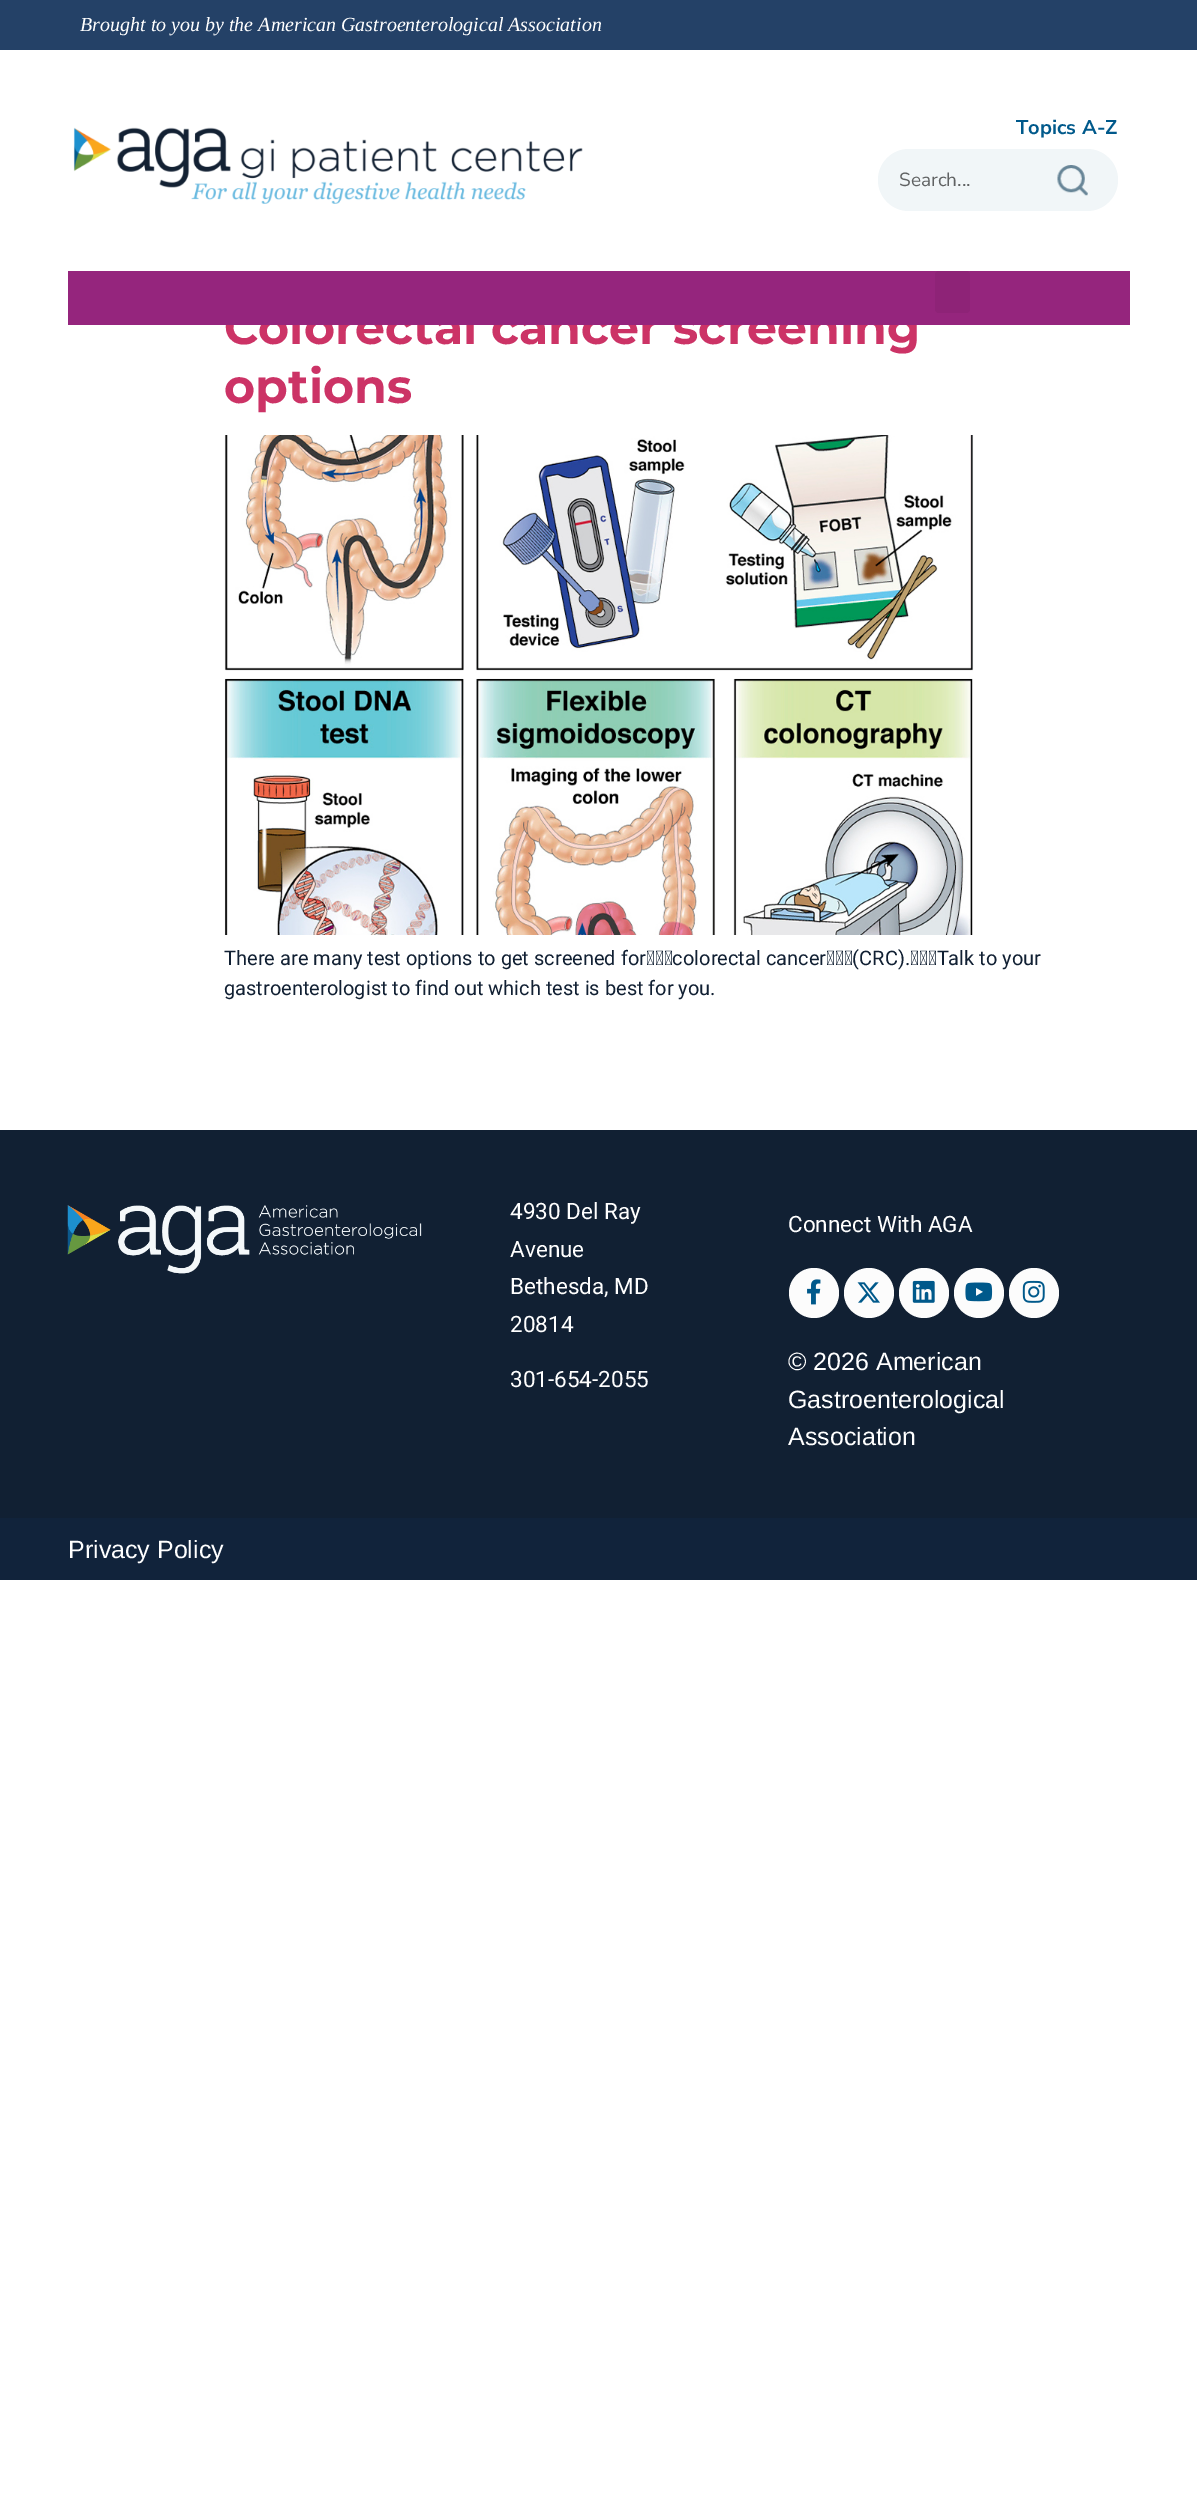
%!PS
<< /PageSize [1197 2515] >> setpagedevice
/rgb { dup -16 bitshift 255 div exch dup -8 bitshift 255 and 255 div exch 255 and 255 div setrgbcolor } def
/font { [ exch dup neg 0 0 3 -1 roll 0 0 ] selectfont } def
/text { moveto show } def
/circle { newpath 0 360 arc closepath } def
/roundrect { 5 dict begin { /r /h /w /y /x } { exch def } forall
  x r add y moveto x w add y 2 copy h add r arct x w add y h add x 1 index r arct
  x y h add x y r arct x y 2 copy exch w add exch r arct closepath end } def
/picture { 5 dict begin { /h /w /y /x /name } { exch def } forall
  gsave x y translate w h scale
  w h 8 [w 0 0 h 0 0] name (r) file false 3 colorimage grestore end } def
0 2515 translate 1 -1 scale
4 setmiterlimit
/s1 { /LiberationSerif-Italic 20 font 16#FFFFFF rgb } def
/s2 { /NunitoSans-Bold 20 font 16#00598B rgb } def
/s3 { /NunitoSans-Regular 19 font 16#606263 rgb } def
/s4 { /Montserrat-Bold 47.5 font 16#CC3366 rgb } def
/s5 { /Roboto-Regular 20 font 16#112033 rgb } def
/s6 { /Roboto-Regular 22.5 font 16#FFFFFF rgb } def
/s7 { /LiberationSans-Regular 25 font 16#FFFFFF rgb } def
16#FFFFFF rgb
0 0 1197 2515 rectfill
16#244167 rgb
0 0 1197 50 rectfill
s1
(Brought to you by the American Gastroenterological Association) 80 31 text
(pic1.raw) 73 127 510 77 picture
s2
(Topics A-Z) 1016 134 text
16#F1F6F8 rgb
878 149 240 62 31 roundrect fill
s3
(Search...) 899 186 text
(pic2.raw) 1057 165 31 31 picture
s4
(Colorectal cancer screening) 224 344 text
16#95257D rgb
68 271 1062 54 rectfill
16#8E2377 rgb
935 271 35 42 4 roundrect fill
s4
(options) 224 403 text
(pic3.raw) 224 435 750 500 picture
s5
(There are many test options to get screened for colorectal cancer \(CRC\). Talk to your) 224 965 text
(gastroenterologist to find out which test is best for you.) 224 995 text
0 1130 1197 388 rectfill
(pic4.raw) 67 1205 355 69 picture
s6
(4930 Del Ray) 510 1219 text
(Avenue) 510 1257 text
(Bethesda, MD) 510 1294 text
(20814) 510 1332 text
(301-654-2055) 510 1387 text
(Connect With AGA) 788 1232 text
16#FCFCFC rgb
814 1293 25 circle fill
(pic5.raw) 807 1279 14 26 picture
869 1293 25 circle fill
(pic6.raw) 857 1282 23 21 picture
924 1293 25 circle fill
(pic7.raw) 912 1280 23 23 picture
979 1293 25 circle fill
(pic8.raw) 965 1282 28 20 picture
1034 1293 25 circle fill
(pic9.raw) 1022 1280 23 23 picture
s7
(© 2026 American) 788 1370 text
(Gastroenterological) 788 1408 text
(Association) 788 1445 text
16#11233B rgb
0 1518 1197 62 rectfill
s7
(Privacy Policy) 68 1558 text
showpage
